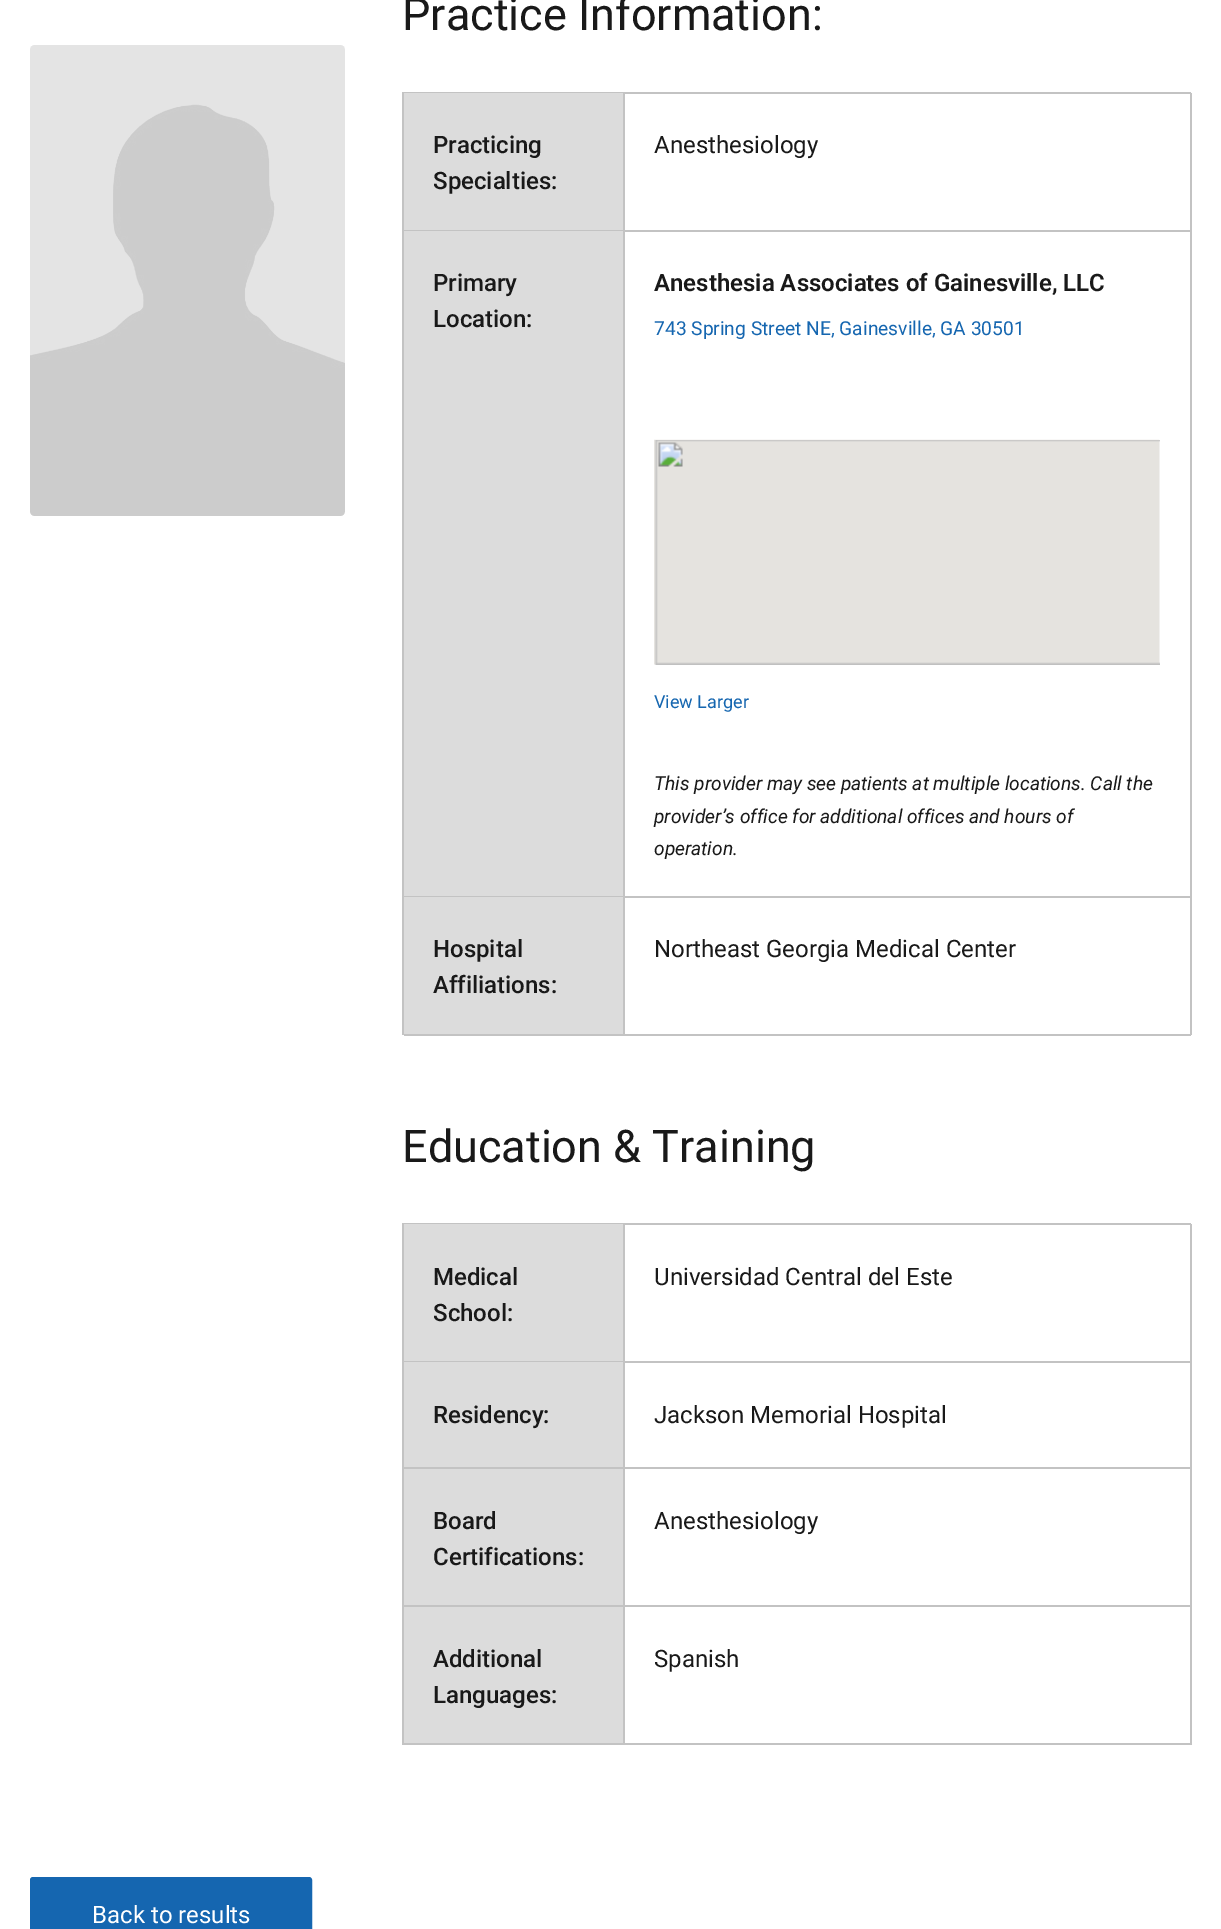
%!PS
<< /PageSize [1221 1929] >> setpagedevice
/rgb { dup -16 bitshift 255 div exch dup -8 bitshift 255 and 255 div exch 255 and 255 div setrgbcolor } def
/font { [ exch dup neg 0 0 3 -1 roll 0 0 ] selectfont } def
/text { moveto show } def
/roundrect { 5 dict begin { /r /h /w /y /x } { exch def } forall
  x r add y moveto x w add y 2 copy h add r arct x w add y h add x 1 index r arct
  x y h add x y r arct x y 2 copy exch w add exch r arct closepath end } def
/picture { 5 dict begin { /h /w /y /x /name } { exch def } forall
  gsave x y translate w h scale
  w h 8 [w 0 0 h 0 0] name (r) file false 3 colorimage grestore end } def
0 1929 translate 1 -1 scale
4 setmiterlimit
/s1 { /Roboto-Regular 45 font 16#191919 rgb } def
/s2 { /Roboto-Medium 24 font 16#191919 rgb } def
/s3 { /Roboto-Regular 24 font 16#191919 rgb } def
/s4 { /Roboto-SemiBold 24 font 16#191919 rgb } def
/s5 { /Roboto-Regular 19.2 font 16#1566B0 rgb } def
/s6 { /Roboto-Regular 18 font 16#1566B0 rgb } def
/s7 { /Roboto-Italic 19.2 font 16#191919 rgb } def
/s8 { /Roboto-Regular 24 font 16#FFFFFF rgb } def
16#FFFFFF rgb
0 0 1221 1929 rectfill
(pic1.raw) 30 45 315 471 picture
s1
(Practice Information:) 402 30 text
16#C3C3C3 rgb
402 92 789 2 rectfill
402 92 2 943 rectfill
16#DCDCDC rgb
404 93 219 137 rectfill
16#C3C3C3 rgb
623 93 2 138 rectfill
404 230 220 1 rectfill
s2
(Practicing) 433 153 text
(Specialties:) 433 189 text
16#C3C3C3 rgb
1190 93 2 138 rectfill
624 230 567 2 rectfill
s3
(Anesthesiology) 654 153 text
16#DCDCDC rgb
404 231 219 665 rectfill
16#C3C3C3 rgb
623 231 2 666 rectfill
404 896 220 1 rectfill
s2
(Primary) 433 291 text
(Location:) 433 327 text
16#C3C3C3 rgb
1190 231 2 666 rectfill
624 896 567 2 rectfill
s4
(Anesthesia Associates of Gainesville, LLC) 654 291 text
s5
(743 Spring Street NE, Gainesville, GA 30501) 654 335 text
16#F5F5F5 rgb
654 440 506 225 rectfill
(pic2.raw) 654 439 506 226 picture
s6
(View Larger) 654 708 text
s7
(This provider may see patients at multiple locations. Call the) 654 790 text
(provider’s office for additional offices and hours of) 654 823 text
(operation.) 654 855 text
16#DCDCDC rgb
404 897 219 137 rectfill
16#C3C3C3 rgb
623 897 2 138 rectfill
404 1034 220 2 rectfill
s2
(Hospital) 433 957 text
(Affiliations:) 433 993 text
16#C3C3C3 rgb
1190 897 2 138 rectfill
624 1034 567 2 rectfill
s3
(Northeast Georgia Medical Center) 654 957 text
s1
(Education & Training) 402 1162 text
16#C3C3C3 rgb
402 1223 789 2 rectfill
402 1223 2 522 rectfill
16#DCDCDC rgb
404 1224 219 137 rectfill
16#C3C3C3 rgb
623 1224 2 138 rectfill
404 1361 220 1 rectfill
s2
(Medical) 433 1285 text
(School:) 433 1321 text
16#C3C3C3 rgb
1190 1224 2 138 rectfill
624 1361 567 2 rectfill
s3
(Universidad Central del Este) 654 1285 text
16#DCDCDC rgb
404 1362 219 105 rectfill
16#C3C3C3 rgb
623 1362 2 383 rectfill
404 1467 220 2 rectfill
s2
(Residency:) 433 1423 text
16#C3C3C3 rgb
1190 1362 2 383 rectfill
624 1467 567 2 rectfill
s3
(Jackson Memorial Hospital) 654 1423 text
16#DCDCDC rgb
404 1469 219 136 rectfill
16#C3C3C3 rgb
404 1605 787 2 rectfill
s2
(Board) 433 1529 text
(Certifications:) 433 1565 text
s3
(Anesthesiology) 654 1529 text
16#DCDCDC rgb
404 1607 219 136 rectfill
16#C3C3C3 rgb
404 1743 787 2 rectfill
s2
(Additional) 433 1667 text
(Languages:) 433 1703 text
s3
(Spanish) 654 1667 text
16#1566B0 rgb
31 1878 280 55 2 roundrect gsave fill grestore
2 setlinewidth
stroke
s8
(Back to results) 92 1923 text
showpage
